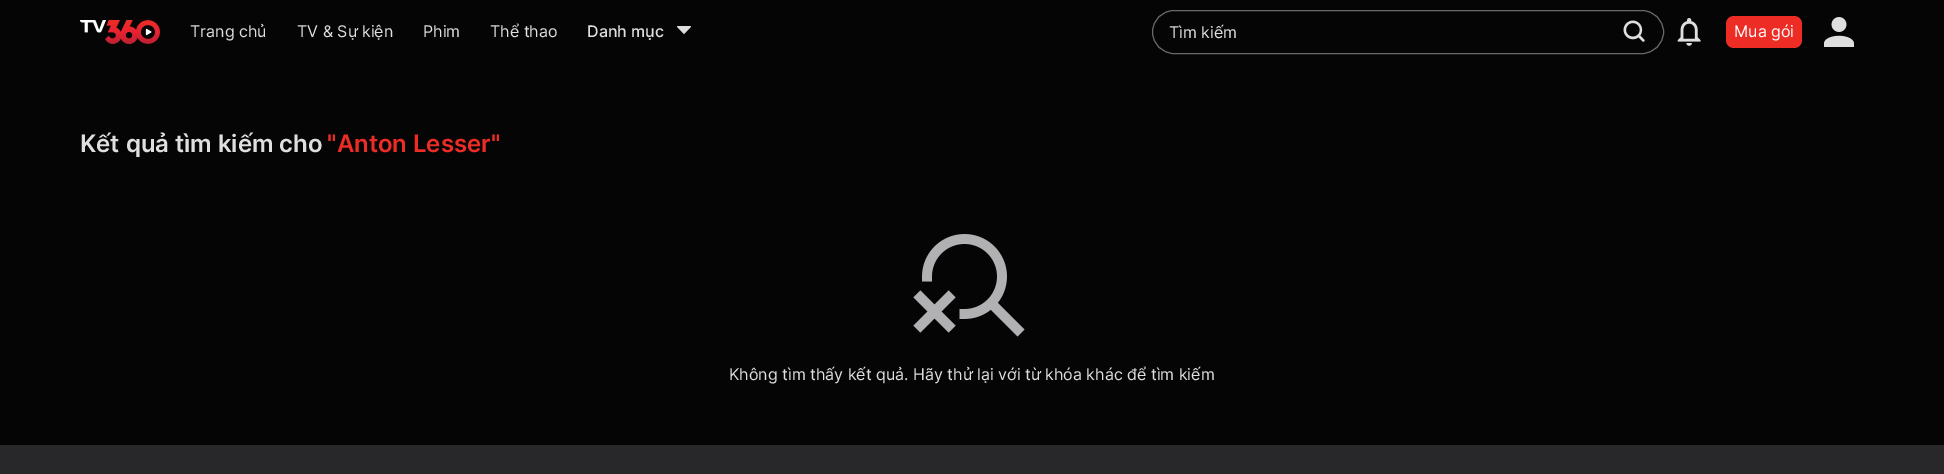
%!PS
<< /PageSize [1944 474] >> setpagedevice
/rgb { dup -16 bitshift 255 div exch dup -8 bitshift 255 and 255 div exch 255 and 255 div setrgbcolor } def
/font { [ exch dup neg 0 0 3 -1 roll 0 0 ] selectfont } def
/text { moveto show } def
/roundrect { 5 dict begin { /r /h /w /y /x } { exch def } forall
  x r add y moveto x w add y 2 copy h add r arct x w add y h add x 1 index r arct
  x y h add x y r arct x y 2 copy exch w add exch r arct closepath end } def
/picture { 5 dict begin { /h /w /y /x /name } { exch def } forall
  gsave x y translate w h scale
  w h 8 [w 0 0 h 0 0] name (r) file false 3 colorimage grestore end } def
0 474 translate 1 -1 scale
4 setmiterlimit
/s1 { /Inter-Regular 16 font 16#DFDFDF rgb } def
/s2 { /Inter-Medium 16 font 16#DFDFDF rgb } def
/s3 { /Inter-Regular 16 font 16#FFFFFF rgb } def
/s4 { /Inter-SemiBold 24 font 16#DFDFDF rgb } def
/s5 { /Inter-SemiBold 24 font 16#ED2C25 rgb } def
16#050505 rgb
0 0 1944 474 rectfill
(pic1.raw) 80 20 80 24 picture
s1
(Trang chủ) 190 37 text
(TV & Sự kiện) 297 37 text
(Phim) 423 37 text
(Thể thao) 490 37 text
s2
(Danh mục) 587 37 text
(pic2.raw) 677 26 14 8 picture
16#696969 rgb
1152.5 10.5 511 43 21.5 roundrect stroke
s1
(Tìm kiếm) 1169 38 text
(pic3.raw) 1623 20 22 22 picture
(pic4.raw) 1677 18 24 28 picture
16#ED2C25 rgb
1726 16 76 32 8 roundrect fill
s3
(Mua gói) 1734 37 text
(pic5.raw) 1824 17 30 30 picture
s4
(Kết quả tìm kiếm cho) 80 152 text
s5
("Anton Lesser") 327 152 text
(pic6.raw) 913 234 112 103 picture
s1
(Không tìm thấy kết quả. Hãy thử lại với từ khóa khác để tìm kiếm) 729 380 text
16#28282A rgb
0 445 1944 29 rectfill
showpage
